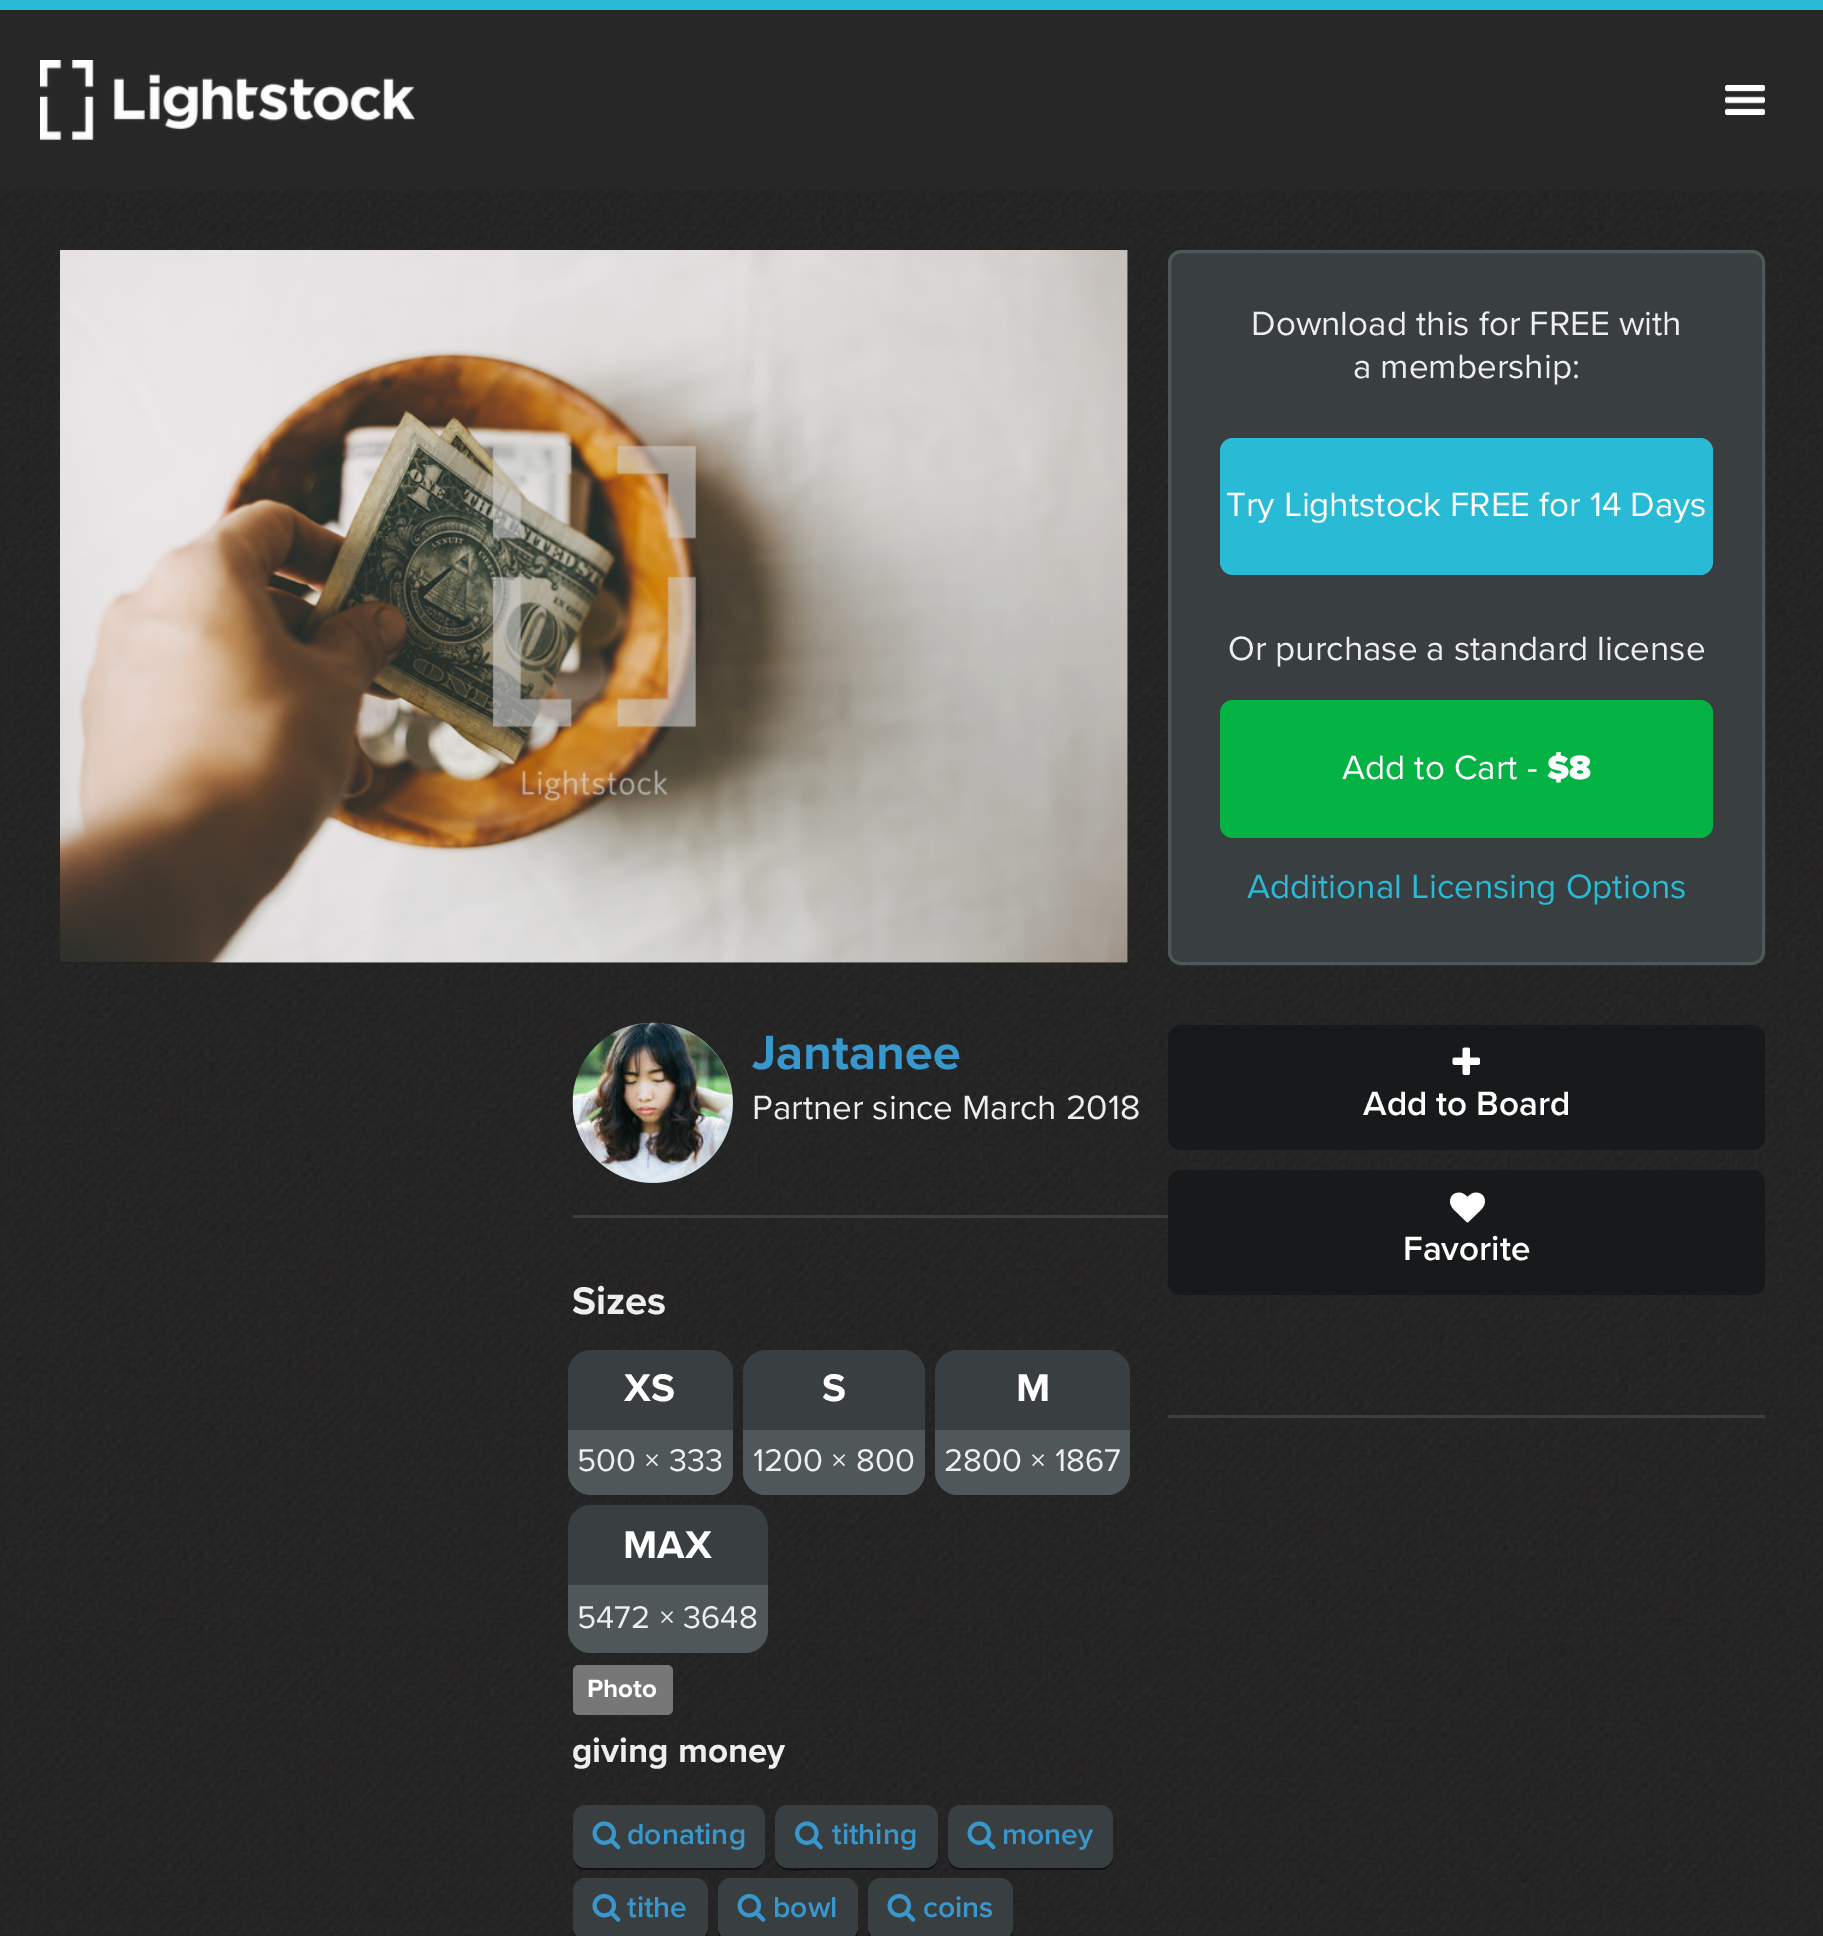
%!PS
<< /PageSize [1823 1936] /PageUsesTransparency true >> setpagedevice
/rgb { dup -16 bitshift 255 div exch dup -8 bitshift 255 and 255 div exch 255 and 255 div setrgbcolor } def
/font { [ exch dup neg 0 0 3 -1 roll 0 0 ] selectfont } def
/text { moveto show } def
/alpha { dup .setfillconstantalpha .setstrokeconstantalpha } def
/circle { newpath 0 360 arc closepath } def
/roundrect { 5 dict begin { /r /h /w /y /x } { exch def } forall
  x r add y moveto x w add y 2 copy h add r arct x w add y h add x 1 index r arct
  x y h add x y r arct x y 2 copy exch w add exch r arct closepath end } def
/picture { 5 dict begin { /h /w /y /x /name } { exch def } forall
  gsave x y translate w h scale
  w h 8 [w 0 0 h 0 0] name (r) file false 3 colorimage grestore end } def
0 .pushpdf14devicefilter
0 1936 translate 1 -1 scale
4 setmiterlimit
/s1 { /ProximaNova-Regular 35 font 16#EEEEEE rgb } def
/s2 { /ProximaNova-Regular 35 font 16#FFFFFF rgb } def
/s3 { /ProximaNova-Black 35 font 16#FFFFFF rgb } def
/s4 { /ProximaNova-Regular 35 font 16#29BAD5 rgb } def
/s5 { /ProximaNova-SemiBold 35 font 16#FFFFFF rgb } def
/s6 { /ProximaNova-Bold 50 font 16#3898CD rgb } def
/s7 { /ProximaNova-Bold 40 font 16#EEEEEE rgb } def
/s8 { /ProximaNova-Bold 40 font 16#FFFFFF rgb } def
/s9 { /ProximaNova-Regular 32.5 font 16#EEEEEE rgb } def
/s10 { /ProximaNova-Bold 26 font 16#FFFFFF rgb } def
/s11 { /ProximaNova-Bold 35 font 16#EEEEEE rgb } def
/s12 { /ProximaNova-SemiBold 30 font 16#3898CD rgb } def
16#242424 rgb
0 0 1823 1936 rectfill
(pic1.raw) 1 190 1821 1745 picture
16#272727 rgb
0 10 1823 180 rectfill
16#29BAD5 rgb
0 0 1823 10 rectfill
(pic2.raw) 40 60 375 80 picture
(pic3.raw) 1725 85 40 30 picture
16#111111 rgb
60 250 1068 713 rectfill
(pic4.raw) 60 250 1068 713 picture
16#393E40 rgb
1168 1415 597 3 rectfill
1169.5 251.5 594 712 11.5 roundrect gsave fill grestore
16#505759 rgb
3 setlinewidth
stroke
s1
(Download this for FREE with) 1251 335 text
(a membership:) 1353 378 text
16#29BAD5 rgb
1220 438 493 137 13 roundrect fill
s2
(Try Lightstock FREE for 14 Days) 1226 516 text
s1
(Or purchase a standard license) 1228 660 text
16#05B345 rgb
1220 700 493 138 13 roundrect fill
s2
(Add to Cart -) 1342 779 text
s3
($8) 1547 779 text
s4
(Additional Licensing Options) 1247 898 text
16#17191A rgb
1168 1025 597 125 13 roundrect fill
(pic5.raw) 1452 1047 28 28 picture
s5
(Add to Board) 1363 1115 text
16#17191A rgb
1168 1170 597 125 13 roundrect fill
(pic6.raw) 1450 1192 35 31 picture
s5
(Favorite) 1403 1260 text
16#393E40 rgb
573 1215 595 3 rectfill
16#CAD4D9 rgb
653 1103 80 circle fill
(pic7.raw) 572 1022 161 161 picture
s6
(Jantanee) 752 1069 text
s1
(Partner since March 2018) 752 1119 text
s7
(Sizes) 572 1314 text
16#393E40 rgb
568 1350 165 145 23 roundrect fill
s8
(XS) 624 1401 text
16#505759 rgb
568 1430 moveto 733 1430 lineto 733 1472 lineto 733 1484.5 722.5 1495 710 1495 curveto 591 1495 lineto 578.5 1495 568 1484.5 568 1472 curveto closepath fill
s9
(500 × 333) 577 1471 text
16#393E40 rgb
743 1350 182 145 23 roundrect fill
s8
(S) 822 1401 text
16#505759 rgb
743 1430 moveto 925 1430 lineto 925 1472 lineto 925 1484.5 914.5 1495 902 1495 curveto 766 1495 lineto 753.5 1495 743 1484.5 743 1472 curveto closepath fill
s9
(1200 × 800) 753 1471 text
16#393E40 rgb
935 1350 195 145 23 roundrect fill
s8
(M) 1016 1401 text
16#505759 rgb
935 1430 moveto 1130 1430 lineto 1130 1472 lineto 1130 1484.5 1119.5 1495 1107 1495 curveto 958 1495 lineto 945.5 1495 935 1484.5 935 1472 curveto closepath fill
s9
(2800 × 1867) 944 1471 text
16#393E40 rgb
568 1505 200 148 23 roundrect fill
s8
(MAX) 623 1558 text
16#505759 rgb
568 1585 moveto 768 1585 lineto 768 1630 lineto 768 1642.5 757.5 1653 745 1653 curveto 591 1653 lineto 578.5 1653 568 1642.5 568 1630 curveto closepath fill
s9
(5472 × 3648) 577 1628 text
16#777777 rgb
573 1665 100 50 6 roundrect fill
s10
(Photo) 587 1697 text
s11
(giving money) 572 1762 text
0.5 alpha
16#000000 rgb
573 1859 moveto 574 1865 579 1870 586 1870 curveto 752 1870 lineto 759 1870 765 1864 765 1857 curveto 765 1855 lineto 765 1862 759 1868 752 1868 curveto 585 1868 lineto 579 1868 575 1864 573 1859 curveto closepath fill
1 alpha
16#393E40 rgb
573 1805 192 63 13 roundrect fill
(pic8.raw) 592 1821 29 29 picture
s12
(donating) 627 1844 text
0.5 alpha
16#000000 rgb
775 1855 moveto 775 1875 797 1870 811 1870 curveto 925 1870 lineto 940 1870 938 1855 938 1845 curveto 937 1817 lineto 938 1842 lineto 938 1852 939 1867 925 1868 curveto 810 1868 lineto 801 1868 775 1873 775 1855 curveto closepath fill
1 alpha
16#393E40 rgb
775 1805 163 63 13 roundrect fill
(pic9.raw) 795 1821 28 29 picture
s12
(tithing) 832 1844 text
0.5 alpha
16#000000 rgb
948 1859 moveto 949 1865 954 1870 961 1870 curveto 1100 1870 lineto 1107 1870 1113 1864 1113 1857 curveto 1113 1821 lineto 1112 1817 lineto 1112 1842 lineto 1112 1852 1115 1865 1103 1867 curveto 960 1868 lineto 955 1867 950 1864 948 1859 curveto closepath fill
1 alpha
16#393E40 rgb
948 1805 165 63 13 roundrect fill
(pic8.raw) 967 1821 29 29 picture
s12
(money) 1002 1844 text
0.5 alpha
16#000000 rgb
573 1931 moveto 574 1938 579 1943 586 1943 curveto 695 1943 lineto 702 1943 708 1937 708 1930 curveto 708 1893 lineto 707 1889 lineto 708 1928 lineto 708 1934 702 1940 695 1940 curveto 585 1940 lineto 579 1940 575 1936 573 1931 curveto closepath fill
1 alpha
16#393E40 rgb
573 1878 135 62 13 roundrect fill
(pic10.raw) 592 1893 29 29 picture
s12
(tithe) 627 1917 text
0.5 alpha
16#000000 rgb
718 1931 moveto 719 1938 724 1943 731 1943 curveto 845 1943 lineto 852 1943 858 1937 858 1930 curveto 858 1893 lineto 857 1889 lineto 858 1928 lineto 858 1934 852 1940 845 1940 curveto 730 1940 lineto 724 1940 720 1936 718 1931 curveto closepath fill
1 alpha
16#393E40 rgb
718 1878 140 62 13 roundrect fill
(pic10.raw) 737 1893 29 29 picture
s12
(bowl) 773 1917 text
0.5 alpha
16#000000 rgb
868 1931 moveto 869 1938 874 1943 881 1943 curveto 1000 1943 lineto 1007 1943 1013 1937 1013 1930 curveto 1013 1893 lineto 1012 1889 lineto 1012 1928 lineto 1012 1934 1007 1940 1000 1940 curveto 880 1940 lineto 874 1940 870 1936 868 1931 curveto closepath fill
1 alpha
16#393E40 rgb
868 1878 145 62 13 roundrect fill
(pic10.raw) 887 1893 29 29 picture
s12
(coins) 923 1917 text
.poppdf14devicefilter showpage
